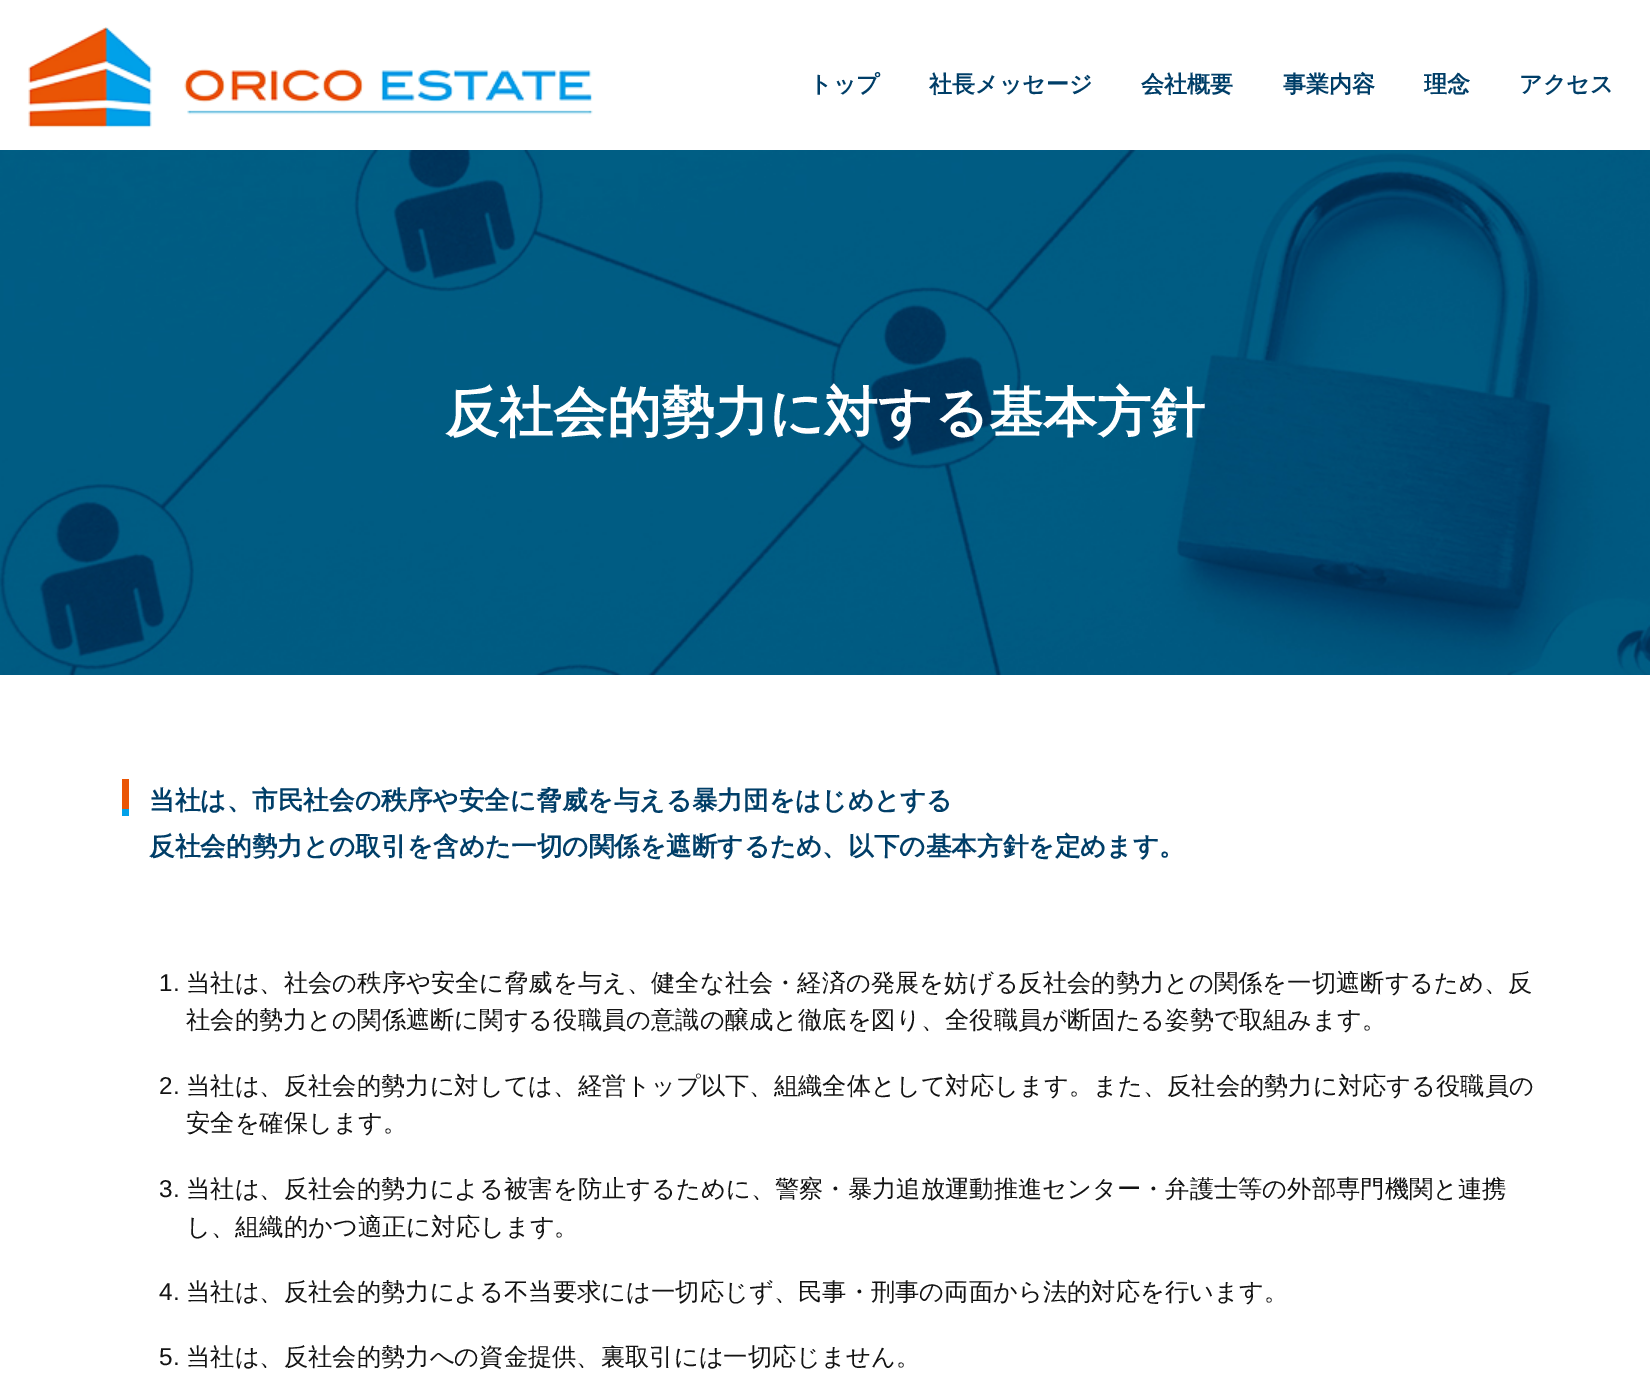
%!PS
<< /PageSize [1650 1386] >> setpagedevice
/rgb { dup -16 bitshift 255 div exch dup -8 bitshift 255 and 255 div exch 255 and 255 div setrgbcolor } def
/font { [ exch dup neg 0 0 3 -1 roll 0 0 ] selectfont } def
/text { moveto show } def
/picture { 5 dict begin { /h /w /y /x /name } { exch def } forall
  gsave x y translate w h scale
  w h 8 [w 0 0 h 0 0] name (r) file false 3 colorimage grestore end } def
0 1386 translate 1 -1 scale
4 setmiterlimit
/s1 { /WenQuanYiZenHei-Bold 23 font 16#003E68 rgb } def
/s2 { /WenQuanYiZenHei-Bold 54 font 16#FFFFFF rgb } def
/s3 { /WenQuanYiZenHei-Bold 25.65 font 16#003E68 rgb } def
/s4 { /LiberationSans-Regular 24.3 font 16#131313 rgb } def
/s5 { /WenQuanYiZenHei-Medium 24.3 font 16#131313 rgb } def
16#FFFFFF rgb
0 0 1650 1386 rectfill
(pic1.raw) 28 27 565 101 picture
s1
(トップ) 809 92 text
(社長メッセージ) 929 92 text
(会社概要) 1141 92 text
(事業内容) 1283 92 text
(理念) 1424 92 text
(アクセス) 1519 92 text
(pic2.raw) 0 150 1650 525 picture
s2
(反社会的勢力に対する基本方針) 445 431 text
16#EA5505 rgb
122 779 7 30 rectfill
16#01A1E9 rgb
122 809 7 7 rectfill
s3
(当社は、市民社会の秩序や安全に脅威を与える暴力団をはじめとする) 149 809 text
(反社会的勢力との取引を含めた一切の関係を遮断するため、以下の基本方針を定めます。) 149 855 text
s4
(1.) 159 991 text
s5
(当社は、社会の秩序や安全に脅威を与え、健全な社会・経済の発展を妨げる反社会的勢力との関係を一切遮断するため、反) 186 991 text
(社会的勢力との関係遮断に関する役職員の意識の醸成と徹底を図り、全役職員が断固たる姿勢で取組みます。) 186 1028 text
s4
(2.) 159 1094 text
s5
(当社は、反社会的勢力に対しては、経営トップ以下、組織全体として対応します。また、反社会的勢力に対応する役職員の) 186 1094 text
(安全を確保します。) 186 1131 text
s4
(3.) 159 1197 text
s5
(当社は、反社会的勢力による被害を防止するために、警察・暴力追放運動推進センター・弁護士等の外部専門機関と連携) 186 1197 text
(し、組織的かつ適正に対応します。) 186 1235 text
s4
(4.) 159 1300 text
s5
(当社は、反社会的勢力による不当要求には一切応じず、民事・刑事の両面から法的対応を行います。) 186 1300 text
s4
(5.) 159 1365 text
s5
(当社は、反社会的勢力への資金提供、裏取引には一切応じません。) 186 1365 text
showpage
